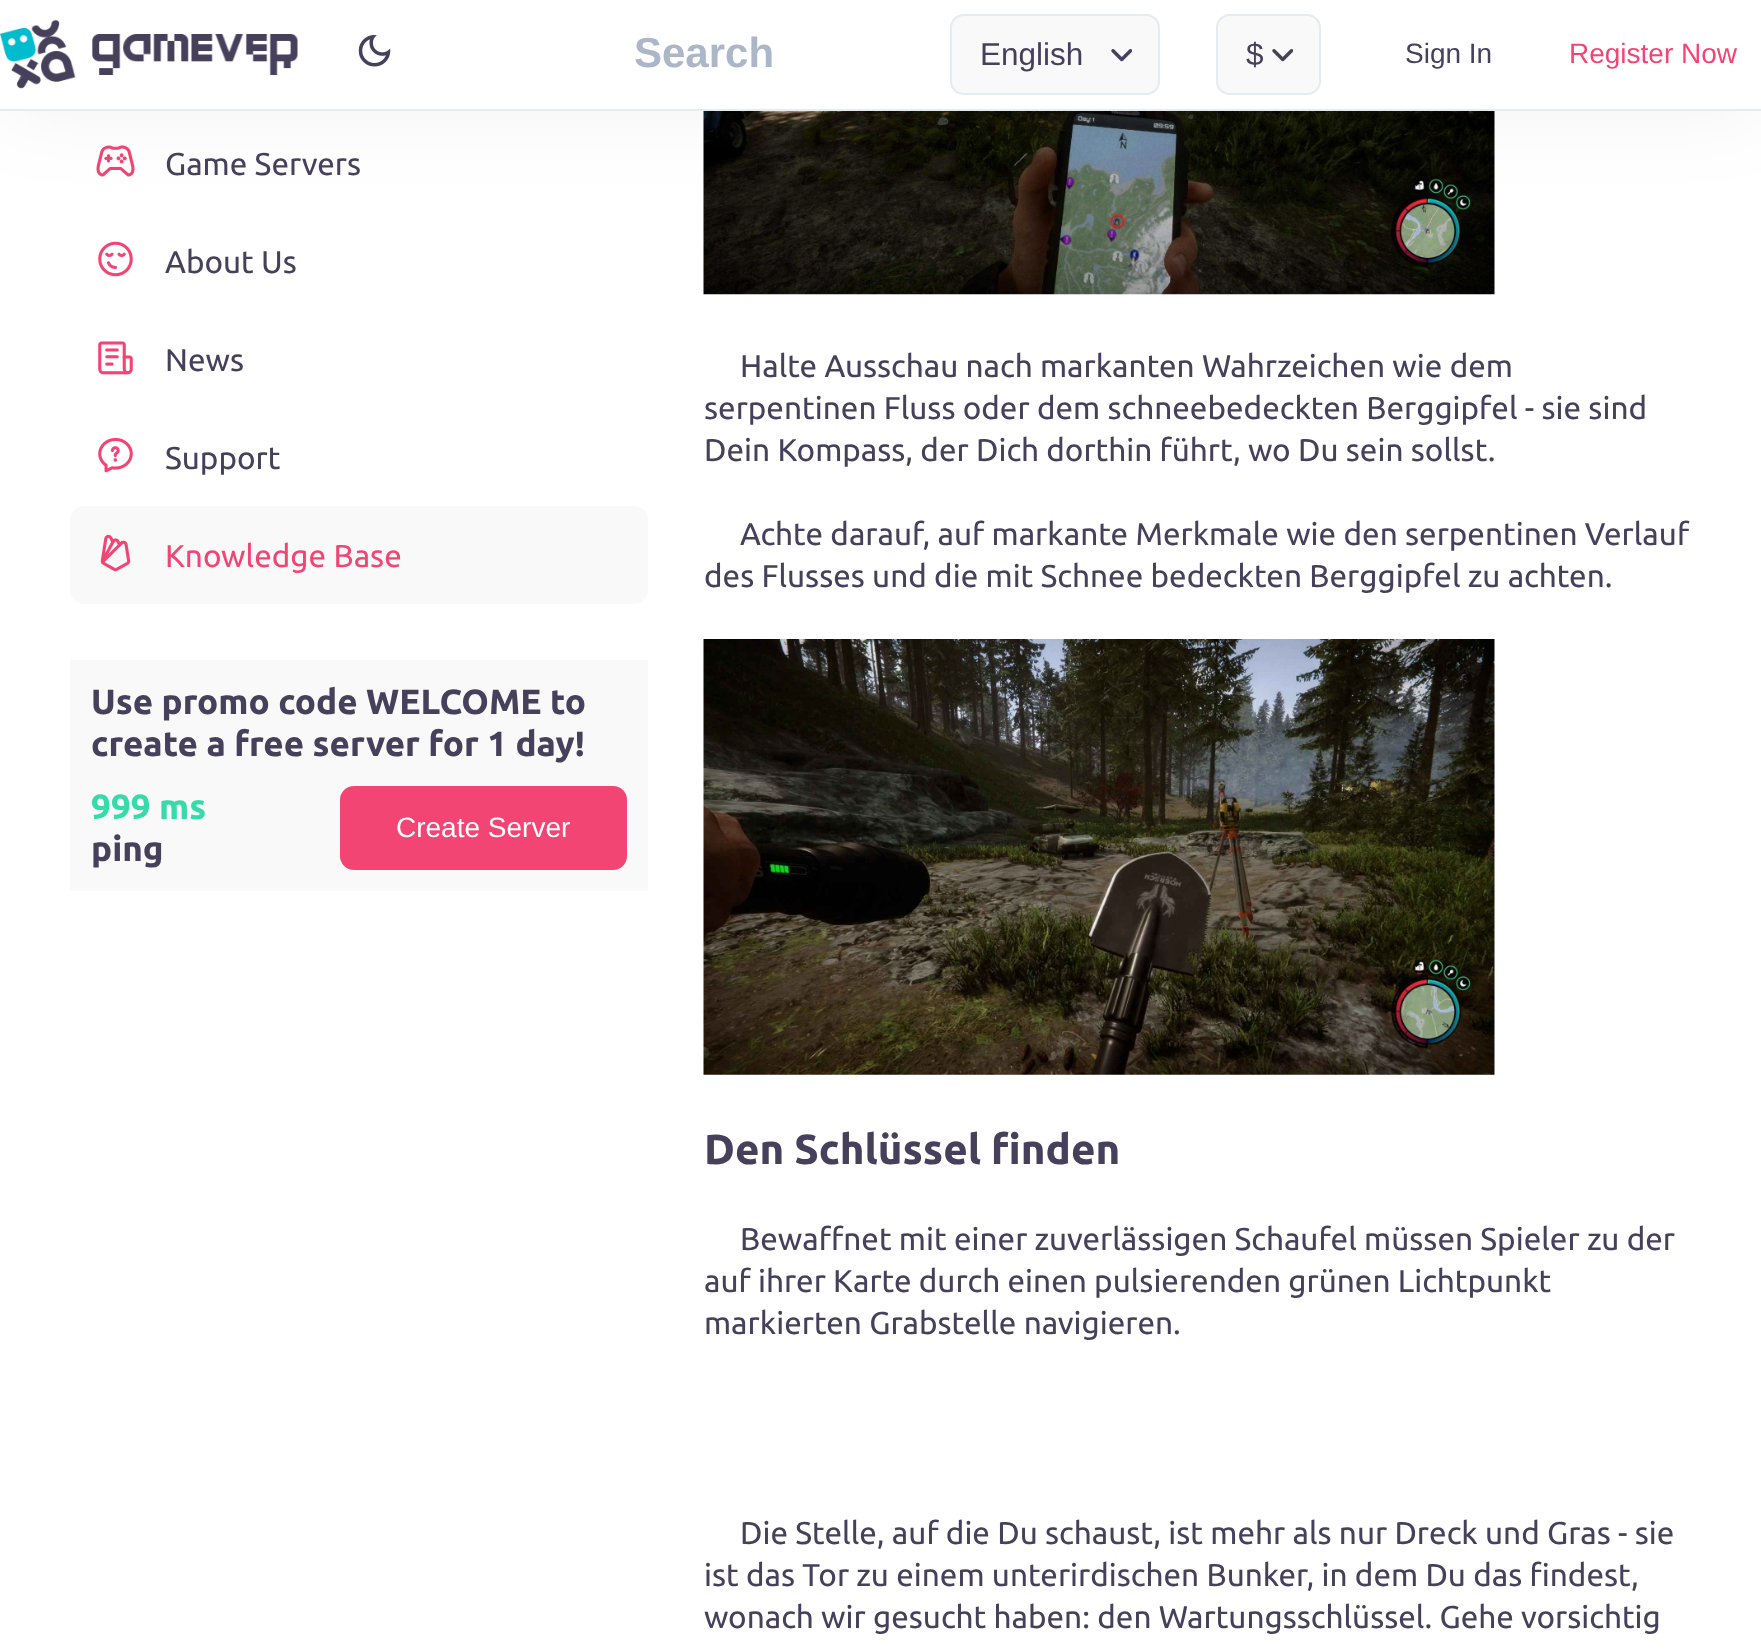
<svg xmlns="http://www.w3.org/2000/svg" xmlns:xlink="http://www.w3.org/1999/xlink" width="1761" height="1650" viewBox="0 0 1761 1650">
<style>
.cls-1{font:bold 42px Liberation Sans;fill:#abb7c7}
.cls-2{font:31.5px Liberation Sans;fill:#46405b}
.cls-3{font:28px Liberation Sans;fill:#46405b}
.cls-4{font:28px Liberation Sans;fill:#f34573}
.cls-5{font:31.5px Ubuntu;fill:#46405b}
.cls-6{font:31.5px Ubuntu;fill:#f34573}
.cls-7{font:bold 35px Ubuntu;fill:#46405b}
.cls-8{font:bold 35px Ubuntu;fill:#35dba8}
.cls-9{font:28px Liberation Sans;fill:#ffffff}
.cls-10{font:bold 42px Ubuntu;fill:#46405b}
</style>
<rect width="100%" height="100%" fill="#ffffff"/>
<image xlink:href="image3.png" x="96" y="145" width="39" height="32"/>
<image xlink:href="image4.png" x="98" y="241" width="35" height="36"/>
<image xlink:href="image8.png" x="703" y="111" width="792" height="184"/>
<rect fill="#000000" fill-opacity="0.05" filter="blur(44px)" x="0" y="0" width="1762" height="110"/>
<rect fill="#ffffff" x="0" y="0" width="1761" height="109"/>
<rect fill="#e6ebf1" x="0" y="109" width="1761" height="2"/>
<image xlink:href="image0.png" x="0" y="19" width="298" height="70"/>
<image xlink:href="image1.png" x="358" y="35" width="33" height="32"/>
<rect fill="#f9f9f9" x="950" y="14" width="210" height="81" rx="14"/>
<image xlink:href="image2.png" x="1111" y="49" width="21" height="13"/>
<rect fill="none" stroke="#e6ebf1" stroke-width="2" x="951" y="15" width="208" height="79" rx="13"/>
<rect fill="#f9f9f9" x="1216" y="14" width="105" height="81" rx="14"/>
<image xlink:href="image2.png" x="1272" y="49" width="21" height="13"/>
<rect fill="none" stroke="#e6ebf1" stroke-width="2" x="1217" y="15" width="103" height="79" rx="13"/>
<image xlink:href="image5.png" x="98" y="341" width="35" height="34"/>
<image xlink:href="image6.png" x="98" y="437" width="35" height="36"/>
<rect fill="#f9f9f9" x="70" y="506" width="578" height="98" rx="14"/>
<image xlink:href="image7.png" x="100" y="534" width="31" height="38"/>
<rect fill="#f9f9f9" x="70" y="660" width="578" height="231"/>
<rect fill="#f34573" x="340" y="786" width="287" height="84" rx="14"/>
<image xlink:href="image9.png" x="703" y="639" width="792" height="436"/>
<text class="cls-1" x="634" y="67">Search</text>
<text class="cls-2" x="980" y="65">English</text>
<text class="cls-2" x="1246" y="65">$</text>
<text class="cls-3" x="1405" y="63">Sign In</text>
<text class="cls-4" x="1569" y="63">Register Now</text>
<text class="cls-5" x="165" y="175">Game Servers</text>
<text class="cls-5" x="165" y="273">About Us</text>
<text class="cls-5" x="165" y="371">News</text>
<text class="cls-5" x="165" y="469">Support</text>
<text class="cls-6" x="165" y="567">Knowledge Base</text>
<text class="cls-7"><tspan x="91" y="714">Use promo code WELCOME to</tspan><tspan x="91" y="756">create a free server for 1 day!</tspan></text>
<text class="cls-8" x="91" y="819">999 ms</text>
<text class="cls-7" x="91" y="861">ping</text>
<text class="cls-9" x="396" y="837">Create Server</text>
<text class="cls-5" x="740" y="377">Halte Ausschau nach markanten Wahrzeichen wie dem</text>
<text class="cls-5"><tspan x="704" y="419">serpentinen Fluss oder dem schneebedeckten Berggipfel - sie sind</tspan><tspan x="704" y="461">Dein Kompass, der Dich dorthin führt, wo Du sein sollst.</tspan></text>
<text class="cls-5" x="740" y="545">Achte darauf, auf markante Merkmale wie den serpentinen Verlauf</text>
<text class="cls-5" x="704" y="587">des Flusses und die mit Schnee bedeckten Berggipfel zu achten.</text>
<text class="cls-10" x="704" y="1164">Den Schlüssel finden</text>
<text class="cls-5" x="740" y="1250">Bewaffnet mit einer zuverlässigen Schaufel müssen Spieler zu der</text>
<text class="cls-5"><tspan x="704" y="1292">auf ihrer Karte durch einen pulsierenden grünen Lichtpunkt</tspan><tspan x="704" y="1334">markierten Grabstelle navigieren.</tspan></text>
<text class="cls-5" x="740" y="1544">Die Stelle, auf die Du schaust, ist mehr als nur Dreck und Gras - sie</text>
<text class="cls-5"><tspan x="704" y="1586">ist das Tor zu einem unterirdischen Bunker, in dem Du das findest,</tspan><tspan x="704" y="1628">wonach wir gesucht haben: den Wartungsschlüssel. Gehe vorsichtig</tspan></text>
</svg>
